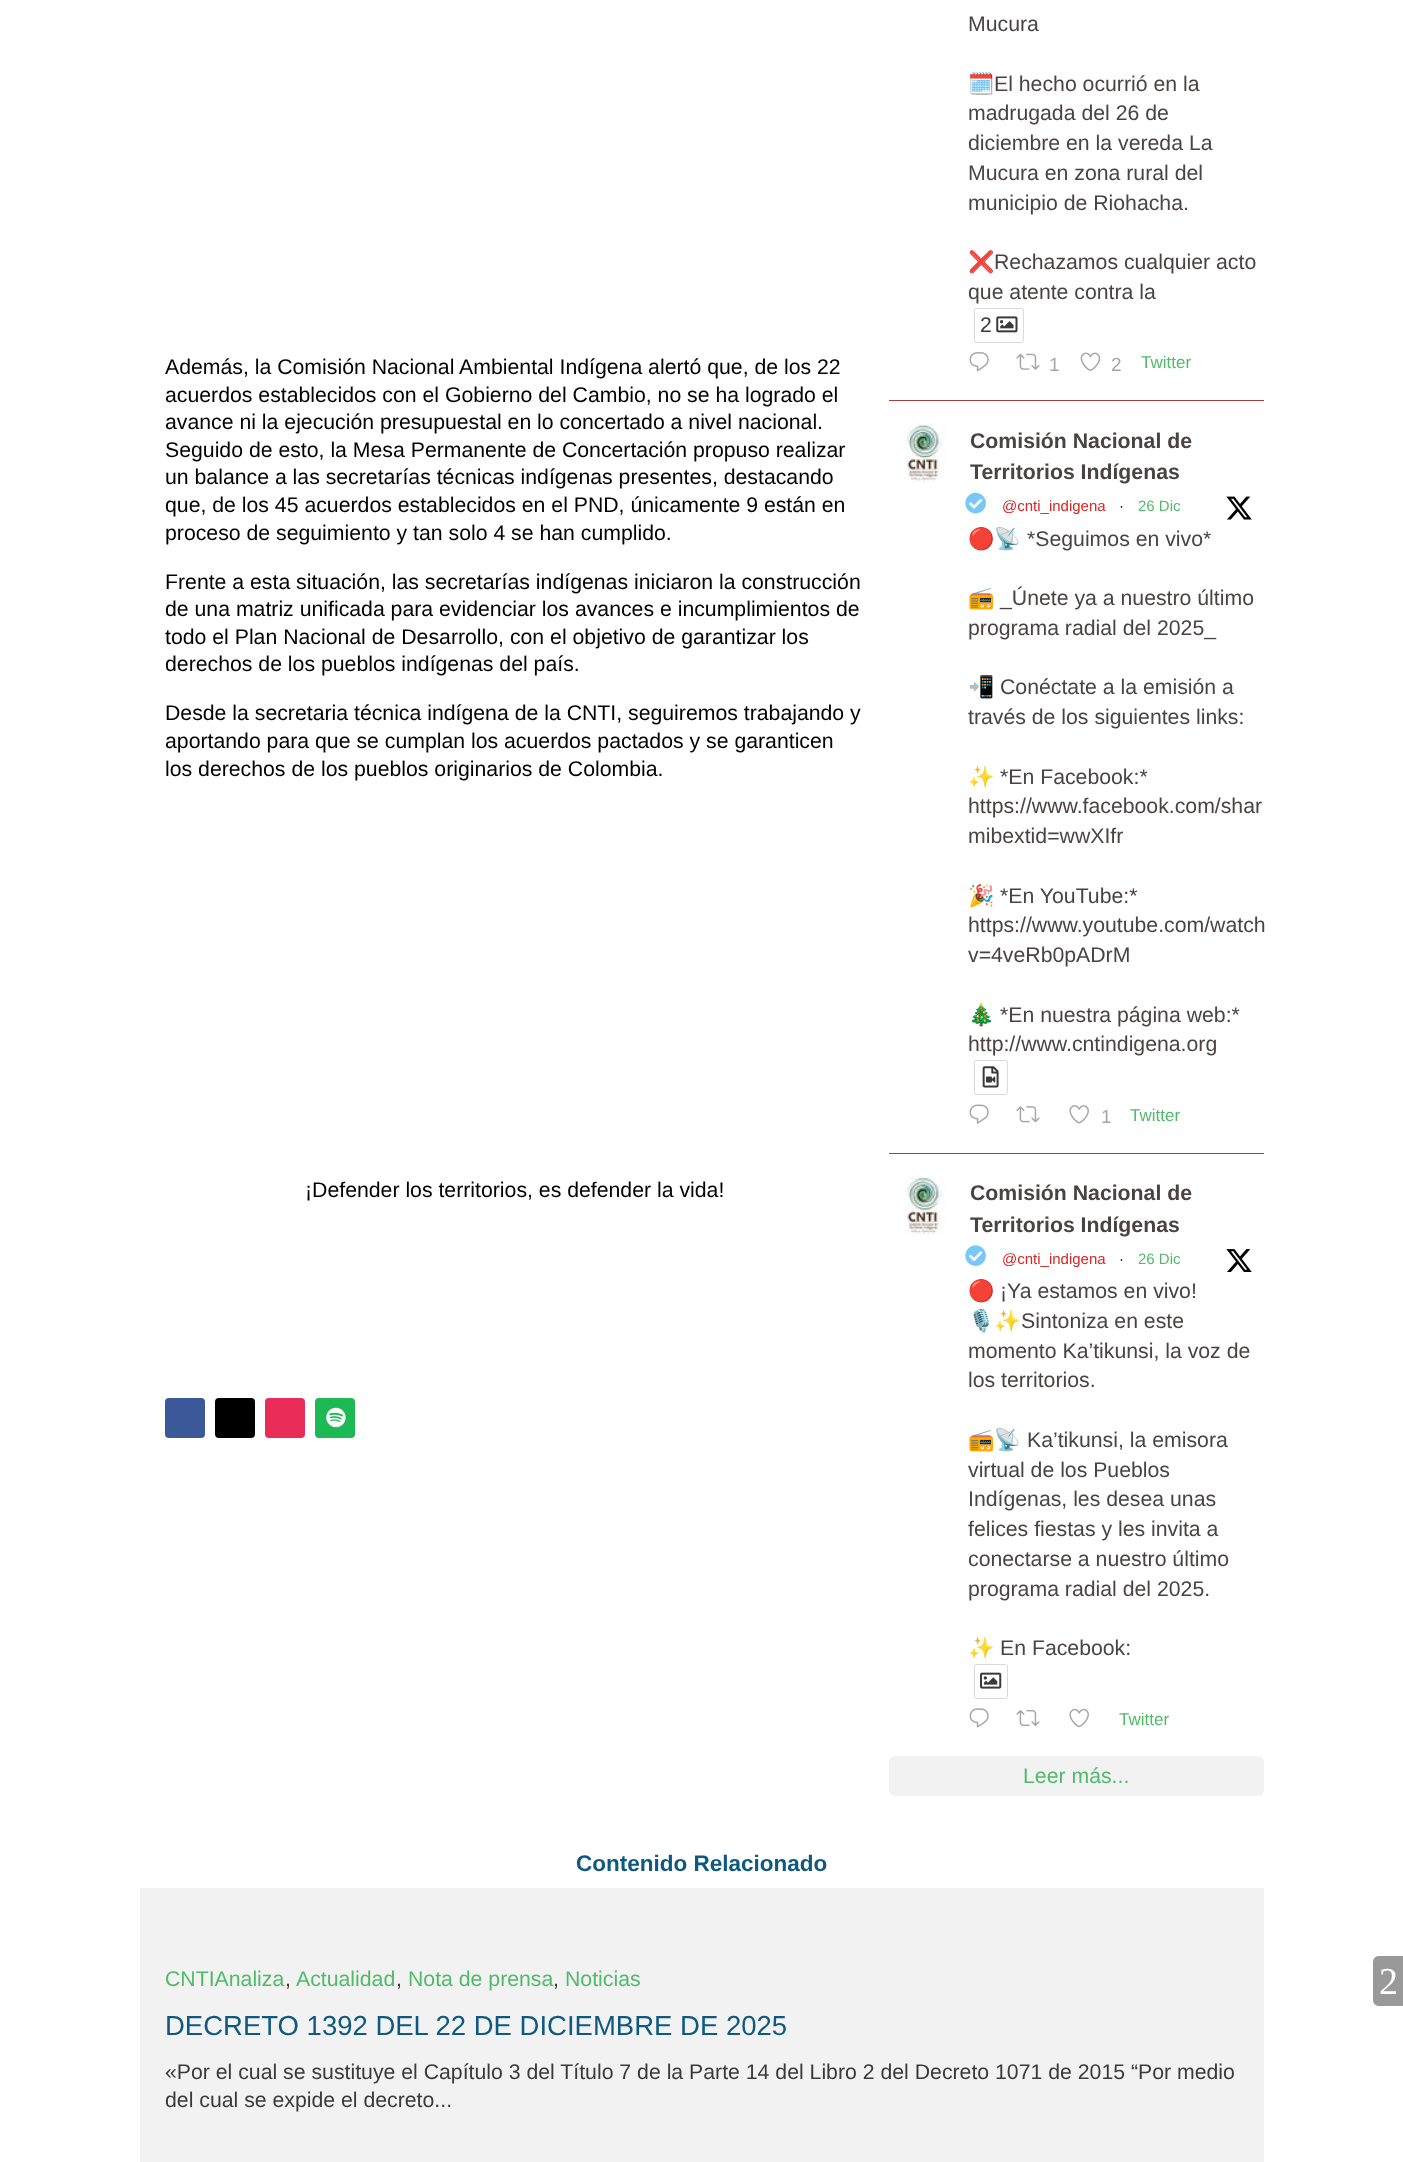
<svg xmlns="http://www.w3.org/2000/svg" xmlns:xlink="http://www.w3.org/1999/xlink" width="1403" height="2162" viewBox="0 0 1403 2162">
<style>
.cls-1{font:21.25px Liberation Sans;fill:#000000}
.cls-2{font:21.25px Liberation Sans;fill:#4b4343}
.cls-3{font:21.25px Noto Color Emoji;fill:#4b4343}
.cls-4{font:21.25px Liberation Sans;fill:#3a3a3a}
.cls-5{font:19px Liberation Sans;fill:#a6a6a6}
.cls-6{font:17px Liberation Sans;fill:#51ba6a}
.cls-7{font:bold 21.25px Liberation Sans;fill:#4b4343}
.cls-8{font:15px Liberation Sans;fill:#d82626}
.cls-9{font:15px Liberation Sans;fill:#000000}
.cls-10{font:15px Liberation Sans;fill:#51ba6a}
.cls-11{font:21.25px Liberation Sans;fill:#51ba6a}
.cls-12{font:bold 22.5px Liberation Sans;fill:#0d5980}
.cls-13{font:27.5px Liberation Sans;fill:#0d5980}
.cls-14{font:38px Liberation Serif;fill:#ffffff}
</style>
<rect width="100%" height="100%" fill="#ffffff"/>
<rect fill="#3b5998" x="165" y="1398" width="40" height="40" rx="4"/>
<rect fill="#000000" x="215" y="1398" width="40" height="40" rx="4"/>
<rect fill="#ea2c59" x="265" y="1398" width="40" height="40" rx="4"/>
<rect fill="#1db954" x="315" y="1398" width="40" height="40" rx="4"/>
<image xlink:href="image0.png" x="326" y="1407" width="20" height="21"/>
<rect fill="#a73f3f" x="889" y="400" width="375" height="1"/>
<rect fill="none" stroke="#d9d9d9" x="974.5" y="308.5" width="49" height="34" rx="2"/>
<image xlink:href="image1.png" x="996" y="316" width="22" height="17"/>
<image xlink:href="image2.png" x="969" y="352" width="20" height="20"/>
<image xlink:href="image3.png" x="1016" y="353" width="24" height="17"/>
<image xlink:href="image4.png" x="1080" y="352" width="21" height="19"/>
<rect fill="#a73f3f" x="889" y="1153" width="375" height="1"/>
<image xlink:href="image5.png" x="904" y="423" width="41" height="60"/>
<image xlink:href="image6.png" x="965" y="492" width="21" height="22"/>
<image xlink:href="image7.png" x="1226" y="496" width="26" height="24"/>
<rect fill="none" stroke="#d9d9d9" x="974.5" y="1060.5" width="33" height="34" rx="2"/>
<image xlink:href="image8.png" x="982" y="1066" width="17" height="22"/>
<image xlink:href="image9.png" x="969" y="1104" width="20" height="20"/>
<image xlink:href="image10.png" x="1016" y="1106" width="24" height="17"/>
<image xlink:href="image11.png" x="1069" y="1105" width="20" height="19"/>
<image xlink:href="image12.png" x="904" y="1176" width="41" height="60"/>
<image xlink:href="image13.png" x="965" y="1245" width="21" height="21"/>
<image xlink:href="image14.png" x="1226" y="1249" width="26" height="23"/>
<rect fill="none" stroke="#d9d9d9" x="974.5" y="1664.5" width="33" height="34" rx="2"/>
<image xlink:href="image15.png" x="980" y="1672" width="22" height="17"/>
<image xlink:href="image16.png" x="969" y="1708" width="20" height="20"/>
<image xlink:href="image17.png" x="1016" y="1710" width="24" height="17"/>
<image xlink:href="image18.png" x="1069" y="1708" width="20" height="20"/>
<rect fill="#f2f2f2" x="889" y="1756" width="375" height="40" rx="6"/>
<rect fill="#f2f2f2" x="140" y="1888" width="1124" height="274"/>
<path fill="#999999" d="M1379 1956H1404V2006H1379C1375.5 2006 1373 2003.5 1373 2000V1962C1373 1958.5 1375.5 1956 1379 1956Z"/>
<text class="cls-1"><tspan x="165" y="374">Además, la Comisión Nacional Ambiental Indígena alertó que, de los 22</tspan><tspan x="165" y="402">acuerdos establecidos con el Gobierno del Cambio, no se ha logrado el</tspan><tspan x="165" y="429">avance ni la ejecución presupuestal en lo concertado a nivel nacional.</tspan><tspan x="165" y="457">Seguido de esto, la Mesa Permanente de Concertación propuso realizar</tspan><tspan x="165" y="484">un balance a las secretarías técnicas indígenas presentes, destacando</tspan><tspan x="165" y="512">que, de los 45 acuerdos establecidos en el PND, únicamente 9 están en</tspan><tspan x="165" y="540">proceso de seguimiento y tan solo 4 se han cumplido.</tspan></text>
<text class="cls-1"><tspan x="165" y="589">Frente a esta situación, las secretarías indígenas iniciaron la construcción</tspan><tspan x="165" y="616">de una matriz unificada para evidenciar los avances e incumplimientos de</tspan><tspan x="165" y="644">todo el Plan Nacional de Desarrollo, con el objetivo de garantizar los</tspan><tspan x="165" y="671">derechos de los pueblos indígenas del país.</tspan></text>
<text class="cls-1"><tspan x="165" y="720">Desde la secretaria técnica indígena de la CNTI, seguiremos trabajando y</tspan><tspan x="165" y="748">aportando para que se cumplan los acuerdos pactados y se garanticen</tspan><tspan x="165" y="776">los derechos de los pueblos originarios de Colombia.</tspan></text>
<text class="cls-1" x="305" y="1197">¡Defender los territorios, es defender la vida!</text>
<text class="cls-2" x="968" y="31">Mucura</text>
<text class="cls-3" x="968" y="91">🗓️</text>
<text class="cls-2" x="994" y="91">El hecho ocurrió en la</text>
<text class="cls-2"><tspan x="968" y="120">madrugada del 26 de</tspan><tspan x="968" y="150">diciembre en la vereda La</tspan><tspan x="968" y="180">Mucura en zona rural del</tspan><tspan x="968" y="210">municipio de Riohacha.</tspan></text>
<text class="cls-3" x="968" y="269">❌</text>
<text class="cls-2" x="994" y="269">Rechazamos cualquier acto</text>
<text class="cls-2" x="968" y="299">que atente contra la</text>
<text class="cls-4" x="980" y="332">2</text>
<text class="cls-5" x="1049" y="371">1</text>
<text class="cls-5" x="1111" y="371">2</text>
<text class="cls-6" x="1141" y="368">Twitter</text>
<text class="cls-7"><tspan x="970" y="448">Comisión Nacional de</tspan><tspan x="970" y="479">Territorios Indígenas</tspan></text>
<text class="cls-8" x="1002" y="511">@cnti_indigena</text>
<text class="cls-9" x="1119" y="511">·</text>
<text class="cls-10" x="1138" y="511">26 Dic</text>
<text class="cls-3" x="968" y="546">🔴📡</text>
<text class="cls-2" x="1027" y="546">*Seguimos en vivo*</text>
<text class="cls-3" x="968" y="605">📻</text>
<text class="cls-2" x="1000" y="605">_Únete ya a nuestro último</text>
<text class="cls-2" x="968" y="635">programa radial del 2025_</text>
<text class="cls-3" x="968" y="694">📲</text>
<text class="cls-2" x="1000" y="694">Conéctate a la emisión a</text>
<text class="cls-2" x="968" y="724">través de los siguientes links:</text>
<text class="cls-3" x="968" y="784">✨</text>
<text class="cls-2" x="1000" y="784">*En Facebook:*</text>
<text class="cls-2"><tspan x="968" y="813">https://www.facebook.com/shar</tspan><tspan x="968" y="843">mibextid=wwXIfr</tspan></text>
<text class="cls-3" x="968" y="903">🎉</text>
<text class="cls-2" x="1000" y="903">*En YouTube:*</text>
<text class="cls-2"><tspan x="968" y="932">https://www.youtube.com/watch</tspan><tspan x="968" y="962">v=4veRb0pADrM</tspan></text>
<text class="cls-3" x="968" y="1022">🎄</text>
<text class="cls-2" x="1000" y="1022">*En nuestra página web:*</text>
<text class="cls-2" x="968" y="1051">http://www.cntindigena.org</text>
<text class="cls-5" x="1101" y="1123">1</text>
<text class="cls-6" x="1130" y="1121">Twitter</text>
<text class="cls-7"><tspan x="970" y="1200">Comisión Nacional de</tspan><tspan x="970" y="1232">Territorios Indígenas</tspan></text>
<text class="cls-8" x="1002" y="1264">@cnti_indigena</text>
<text class="cls-9" x="1119" y="1264">·</text>
<text class="cls-10" x="1138" y="1264">26 Dic</text>
<text class="cls-3" x="968" y="1298">🔴</text>
<text class="cls-2" x="1000" y="1298">¡Ya estamos en vivo!</text>
<text class="cls-3" x="968" y="1328">🎙️✨</text>
<text class="cls-2" x="1021" y="1328">Sintoniza en este</text>
<text class="cls-2"><tspan x="968" y="1358">momento Ka’tikunsi, la voz de</tspan><tspan x="968" y="1387">los territorios.</tspan></text>
<text class="cls-3" x="968" y="1447">📻📡</text>
<text class="cls-2" x="1027" y="1447">Ka’tikunsi, la emisora</text>
<text class="cls-2"><tspan x="968" y="1477">virtual de los Pueblos</tspan><tspan x="968" y="1506">Indígenas, les desea unas</tspan><tspan x="968" y="1536">felices fiestas y les invita a</tspan><tspan x="968" y="1566">conectarse a nuestro último</tspan><tspan x="968" y="1596">programa radial del 2025.</tspan></text>
<text class="cls-3" x="968" y="1655">✨</text>
<text class="cls-2" x="1000" y="1655">En Facebook:</text>
<text class="cls-6" x="1119" y="1725">Twitter</text>
<text class="cls-11" x="1023" y="1783">Leer más...</text>
<text class="cls-12" x="576" y="1871">Contenido Relacionado</text>
<text class="cls-11" x="165" y="1986">CNTIAnaliza</text>
<text class="cls-4" x="285" y="1986">,</text>
<text class="cls-11" x="296" y="1986">Actualidad</text>
<text class="cls-4" x="396" y="1986">,</text>
<text class="cls-11" x="408" y="1986">Nota de prensa</text>
<text class="cls-4" x="553" y="1986">,</text>
<text class="cls-11" x="565" y="1986">Noticias</text>
<text class="cls-13" x="165" y="2035">DECRETO 1392 DEL 22 DE DICIEMBRE DE 2025</text>
<text class="cls-4"><tspan x="165" y="2079">«Por el cual se sustituye el Capítulo 3 del Título 7 de la Parte 14 del Libro 2 del Decreto 1071 de 2015 “Por medio</tspan><tspan x="165" y="2107">del cual se expide el decreto...</tspan></text>
<text class="cls-14" x="1379" y="1994">2</text>
</svg>
